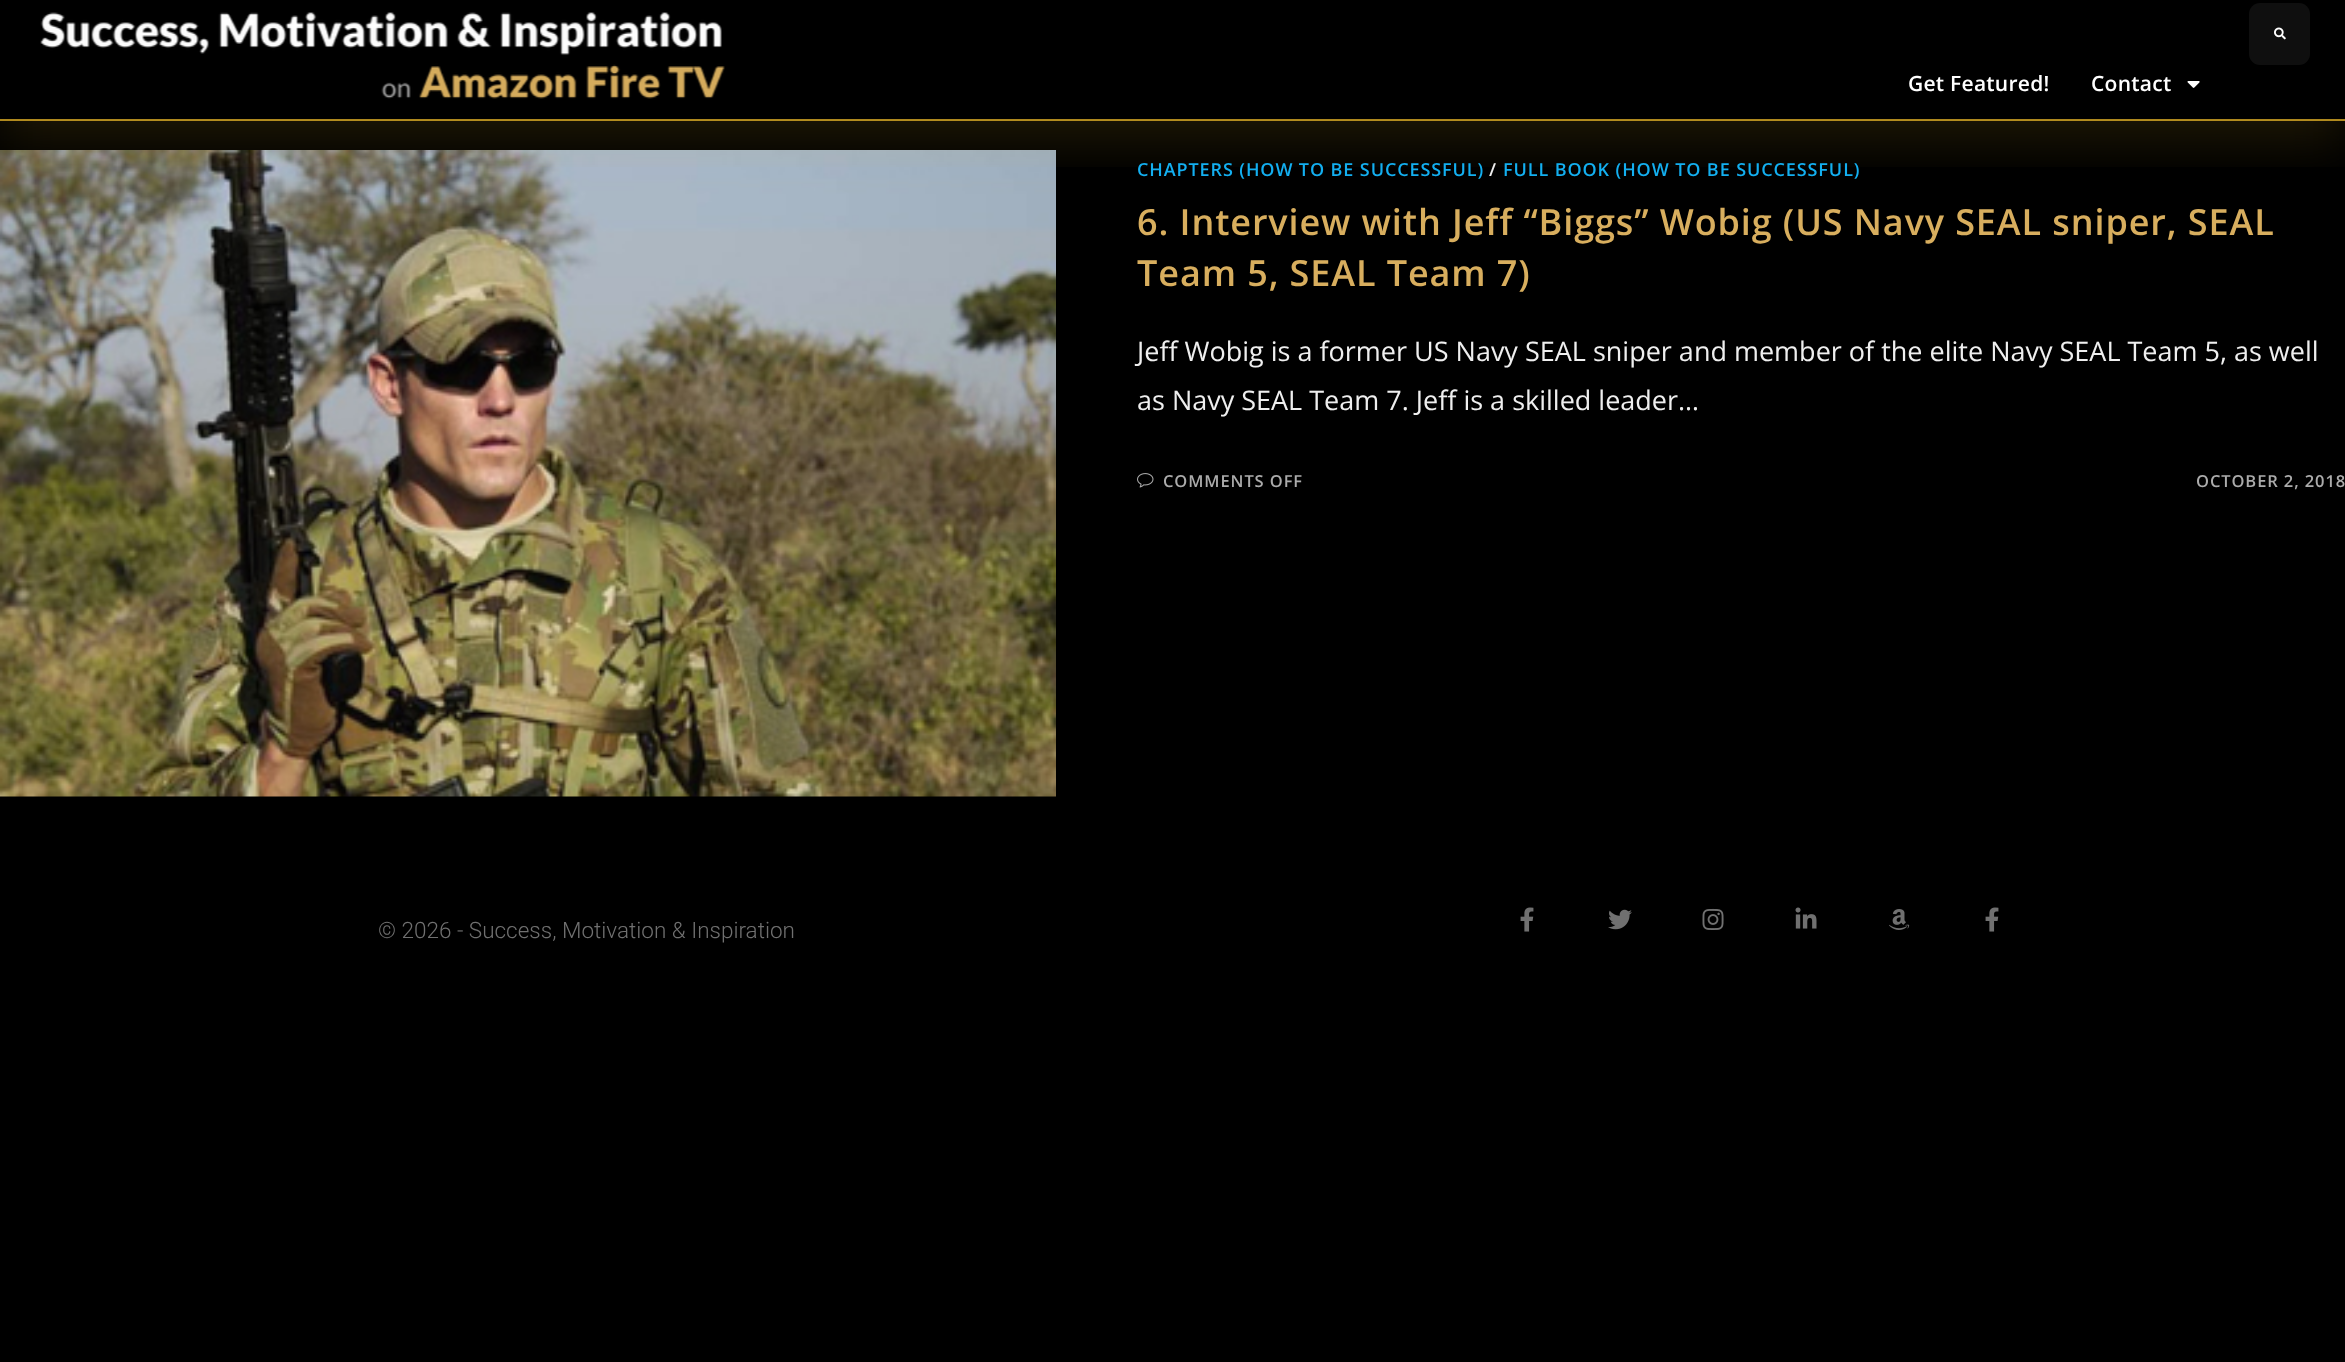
<svg xmlns="http://www.w3.org/2000/svg" xmlns:xlink="http://www.w3.org/1999/xlink" width="2345" height="1362" viewBox="0 0 2345 1362">
<style>
.cls-1{font:600 21px Open Sans;letter-spacing:0.25px;fill:#ffffff}
.cls-2{font:600 18px Open Sans;letter-spacing:0.9px;fill:#13aff0}
.cls-3{font:600 18px Open Sans;letter-spacing:0.9px;fill:#efefef}
.cls-4{font:600 36px Open Sans;letter-spacing:0.9px;fill:#d8ae5e}
.cls-5{font:27px Open Sans;fill:#efefef}
.cls-6{font:600 16.5px Open Sans;letter-spacing:0.9px;fill:#ababab}
.cls-7{font:300 22.5px Roboto;fill:#707070}
</style>
<defs>
<clipPath id="clip1"><rect x="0" y="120" width="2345" height="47"/></clipPath>
</defs>
<rect width="100%" height="100%" fill="#000000"/>
<image xlink:href="image3.png" x="0" y="150" width="1056" height="647"/>
<g clip-path="url(#clip1)">
<rect fill="#ffc72c" fill-opacity="0.12" filter="blur(27px)" x="0" y="21" width="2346" height="120"/>
</g>
<rect fill="#ffc72c" fill-opacity="0.68" x="0" y="119" width="2345" height="2"/>
<image xlink:href="image0.png" x="40" y="12" width="685" height="87"/>
<image xlink:href="image1.png" x="2187" y="81" width="13" height="7"/>
<rect fill="#0f0f0f" x="2249" y="3" width="61" height="62" rx="11"/>
<image xlink:href="image2.png" x="2274" y="27" width="12" height="13"/>
<image xlink:href="image4.png" x="1137" y="473" width="17" height="15"/>
<image xlink:href="image5.png" x="1520" y="907" width="14" height="25"/>
<image xlink:href="image6.png" x="1608" y="909" width="24" height="21"/>
<image xlink:href="image7.png" x="1702" y="908" width="22" height="22"/>
<image xlink:href="image8.png" x="1795" y="907" width="22" height="22"/>
<image xlink:href="image9.png" x="1889" y="909" width="21" height="21"/>
<image xlink:href="image5.png" x="1985" y="907" width="14" height="25"/>
<text class="cls-1" x="1908" y="91">Get Featured!</text>
<text class="cls-1" x="2091" y="91">Contact</text>
<text class="cls-2" x="1137" y="176">CHAPTERS (HOW TO BE SUCCESSFUL)</text>
<text class="cls-3" x="1489" y="176">/</text>
<text class="cls-2" x="1503" y="176">FULL BOOK (HOW TO BE SUCCESSFUL)</text>
<text class="cls-4"><tspan x="1137" y="235">6. Interview with Jeff “Biggs” Wobig (US Navy SEAL sniper, SEAL</tspan><tspan x="1137" y="286">Team 5, SEAL Team 7)</tspan></text>
<text class="cls-5"><tspan x="1137" y="361">Jeff Wobig is a former US Navy SEAL sniper and member of the elite Navy SEAL Team 5, as well</tspan><tspan x="1137" y="410">as Navy SEAL Team 7. Jeff is a skilled leader…</tspan></text>
<text class="cls-6" x="1163" y="487">COMMENTS OFF</text>
<text class="cls-6" x="2196" y="487">OCTOBER 2, 2018</text>
<text class="cls-7" x="378" y="938">© 2026 - Success, Motivation &amp; Inspiration</text>
</svg>
